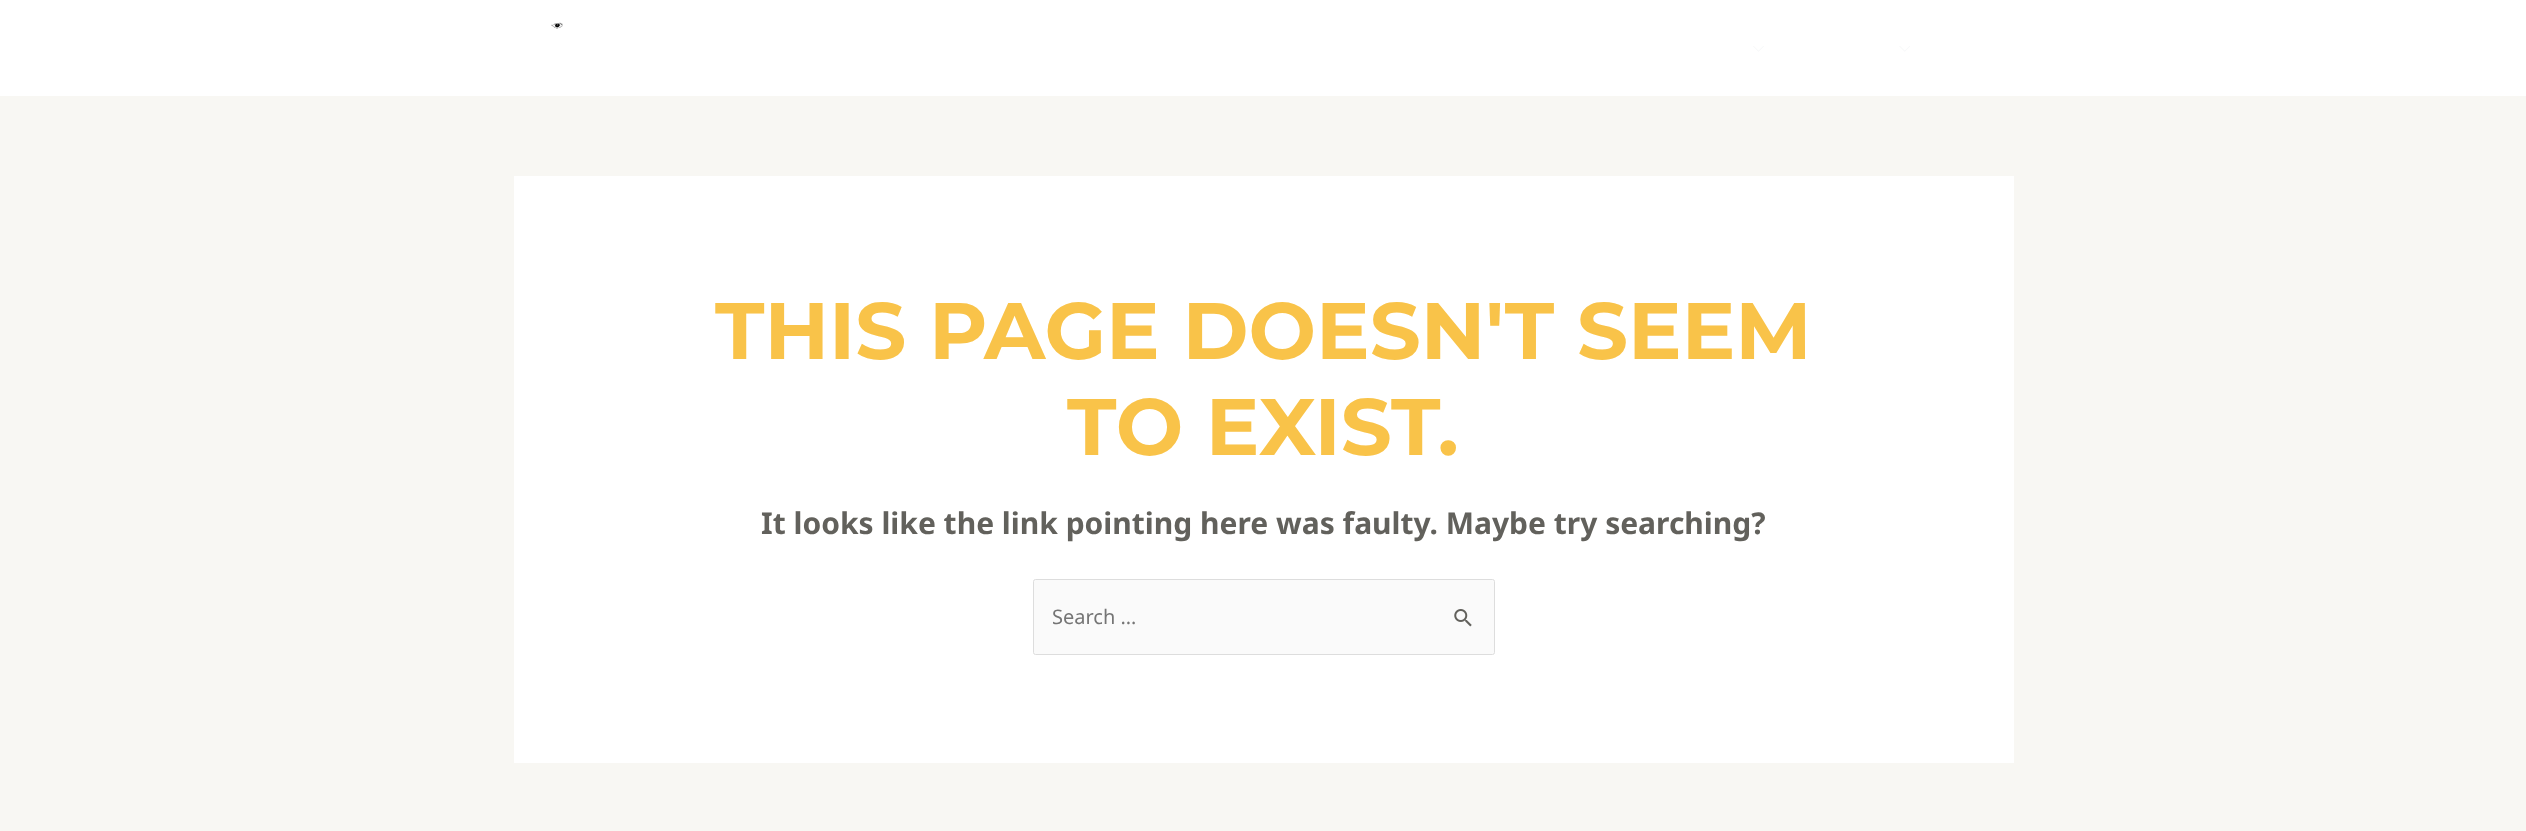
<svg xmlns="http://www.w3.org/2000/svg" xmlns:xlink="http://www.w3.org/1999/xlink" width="2526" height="831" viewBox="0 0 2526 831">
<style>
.cls-1{font:100 80px Montserrat;fill:#f9c349}
.cls-2{font:bold 30px Noto Sans;fill:#62615c}
.cls-3{font:20px Noto Sans;fill:#757575}
</style>
<rect width="100%" height="100%" fill="#f8f7f3"/>
<rect fill="#ffffff" x="0" y="0" width="2526" height="96"/>
<image xlink:href="image0.png" x="551" y="22" width="12" height="7"/>
<image xlink:href="image1.png" x="1753" y="46" width="11" height="6"/>
<image xlink:href="image2.png" x="1899" y="46" width="11" height="6"/>
<rect fill="#ffffff" x="514" y="176" width="1500" height="587"/>
<rect fill="#fafafa" stroke="#dddddd" x="1033.5" y="579.5" width="461" height="75" rx="2"/>
<image xlink:href="image3.png" x="1454" y="609" width="18" height="18"/>
<text class="cls-1" x="715" y="359">THIS PAGE DOESN'T SEEM</text>
<text class="cls-1" x="1067" y="455">TO EXIST.</text>
<text class="cls-2" x="761" y="534">It looks like the link pointing here was faulty. Maybe try searching?</text>
<text class="cls-3" x="1052" y="624">Search …</text>
</svg>
